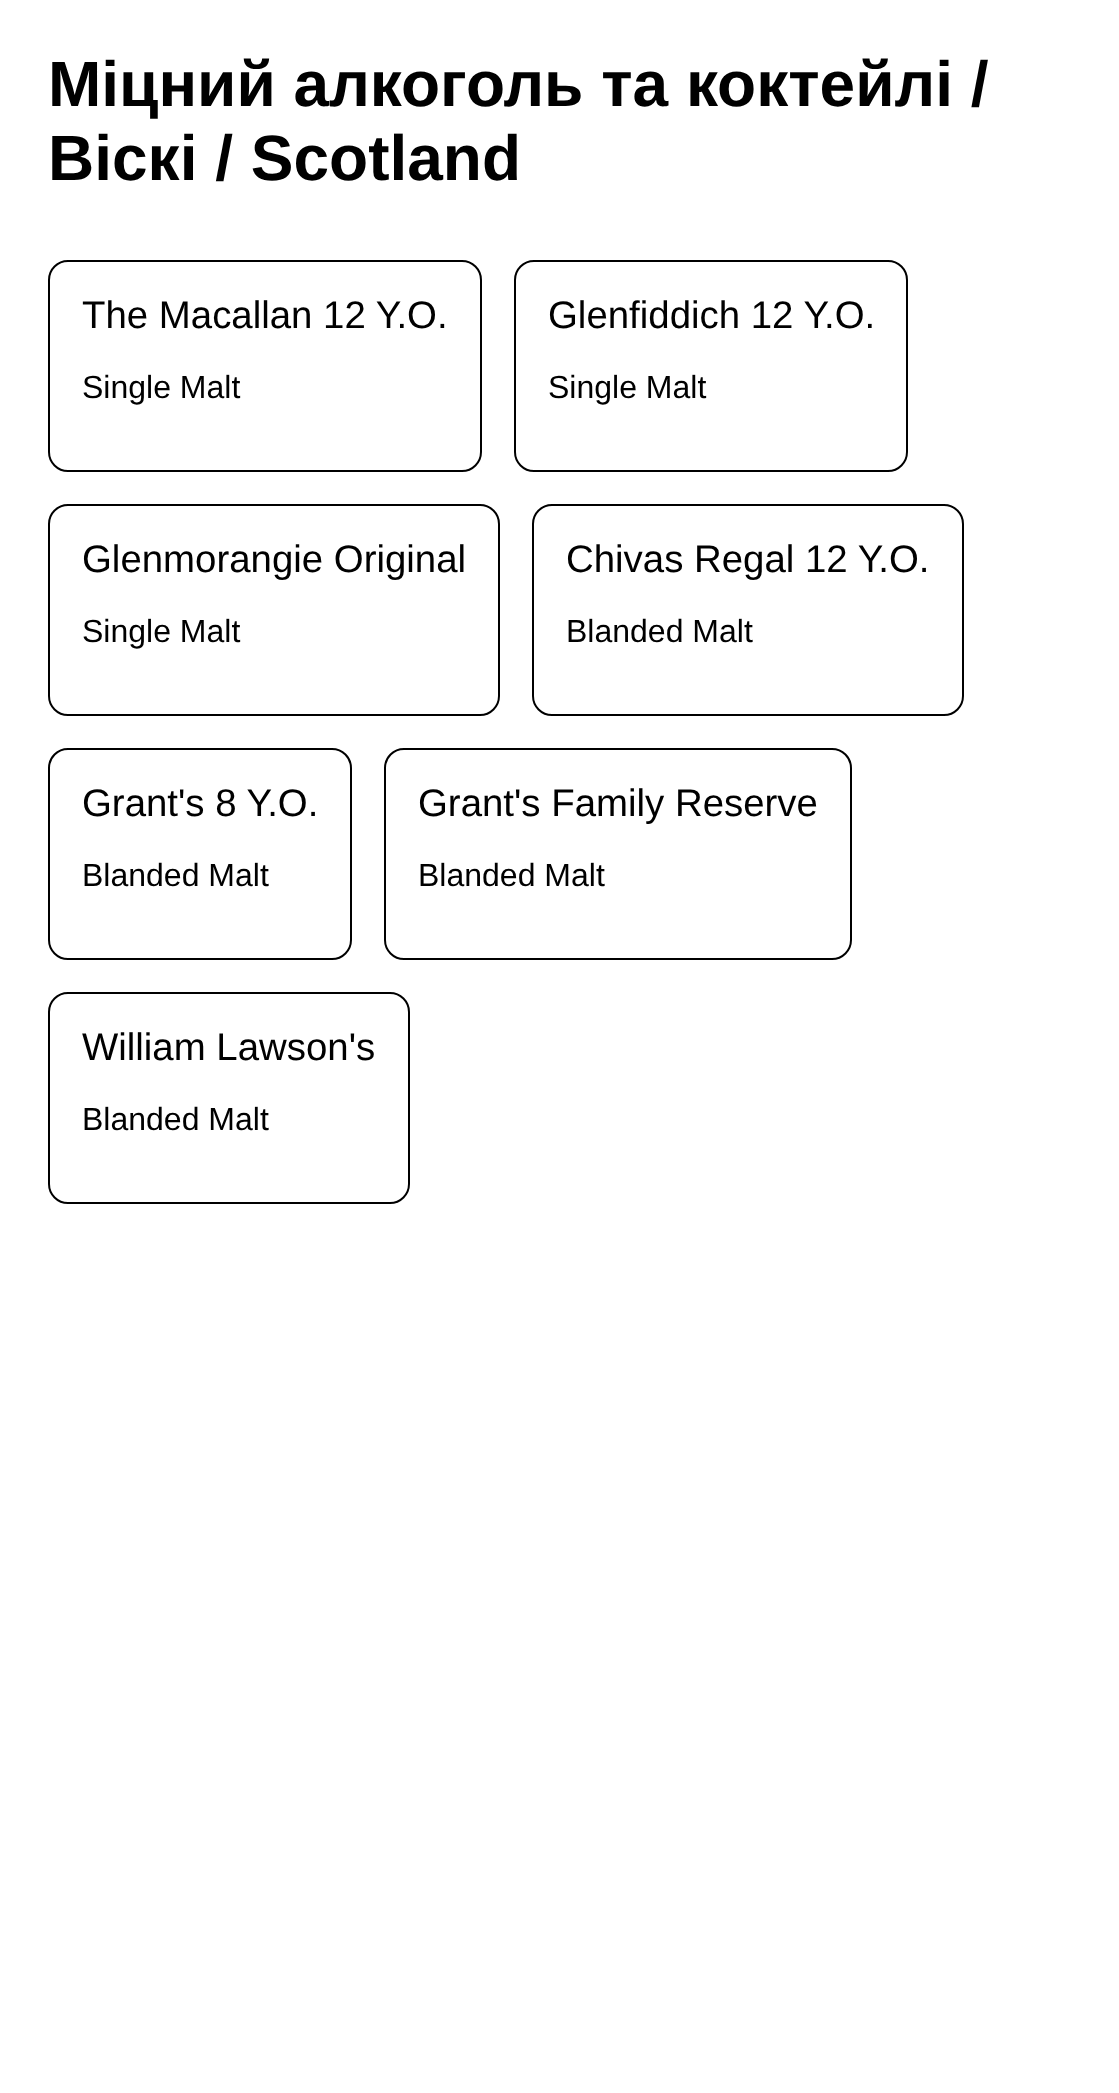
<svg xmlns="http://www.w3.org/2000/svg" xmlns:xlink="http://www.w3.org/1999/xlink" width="1119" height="2093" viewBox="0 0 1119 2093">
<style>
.cls-1{font:bold 64px Liberation Sans;fill:#000000}
.cls-2{font:38.4px Liberation Sans;fill:#000000}
.cls-3{font:32px Liberation Sans;fill:#000000}
</style>
<rect width="100%" height="100%" fill="#ffffff"/>
<rect fill="none" stroke="#000000" stroke-width="2" x="49" y="261" width="432" height="210" rx="19"/>
<rect fill="none" stroke="#000000" stroke-width="2" x="515" y="261" width="392" height="210" rx="19"/>
<rect fill="none" stroke="#000000" stroke-width="2" x="49" y="505" width="450" height="210" rx="19"/>
<rect fill="none" stroke="#000000" stroke-width="2" x="533" y="505" width="430" height="210" rx="19"/>
<rect fill="none" stroke="#000000" stroke-width="2" x="49" y="749" width="302" height="210" rx="19"/>
<rect fill="none" stroke="#000000" stroke-width="2" x="385" y="749" width="466" height="210" rx="19"/>
<rect fill="none" stroke="#000000" stroke-width="2" x="49" y="993" width="360" height="210" rx="19"/>
<text class="cls-1"><tspan x="48" y="106">Міцний алкоголь та коктейлі /</tspan><tspan x="48" y="180">Віскі / Scotland</tspan></text>
<text class="cls-2" x="82" y="328">The Macallan 12 Y.O.</text>
<text class="cls-3" x="82" y="398">Single Malt</text>
<text class="cls-2" x="548" y="328">Glenfiddich 12 Y.O.</text>
<text class="cls-3" x="548" y="398">Single Malt</text>
<text class="cls-2" x="82" y="572">Glenmorangie Original</text>
<text class="cls-3" x="82" y="642">Single Malt</text>
<text class="cls-2" x="566" y="572">Chivas Regal 12 Y.O.</text>
<text class="cls-3" x="566" y="642">Blanded Malt</text>
<text class="cls-2" x="82" y="816">Grant's 8 Y.O.</text>
<text class="cls-3" x="82" y="886">Blanded Malt</text>
<text class="cls-2" x="418" y="816">Grant's Family Reserve</text>
<text class="cls-3" x="418" y="886">Blanded Malt</text>
<text class="cls-2" x="82" y="1060">William Lawson's</text>
<text class="cls-3" x="82" y="1130">Blanded Malt</text>
</svg>
